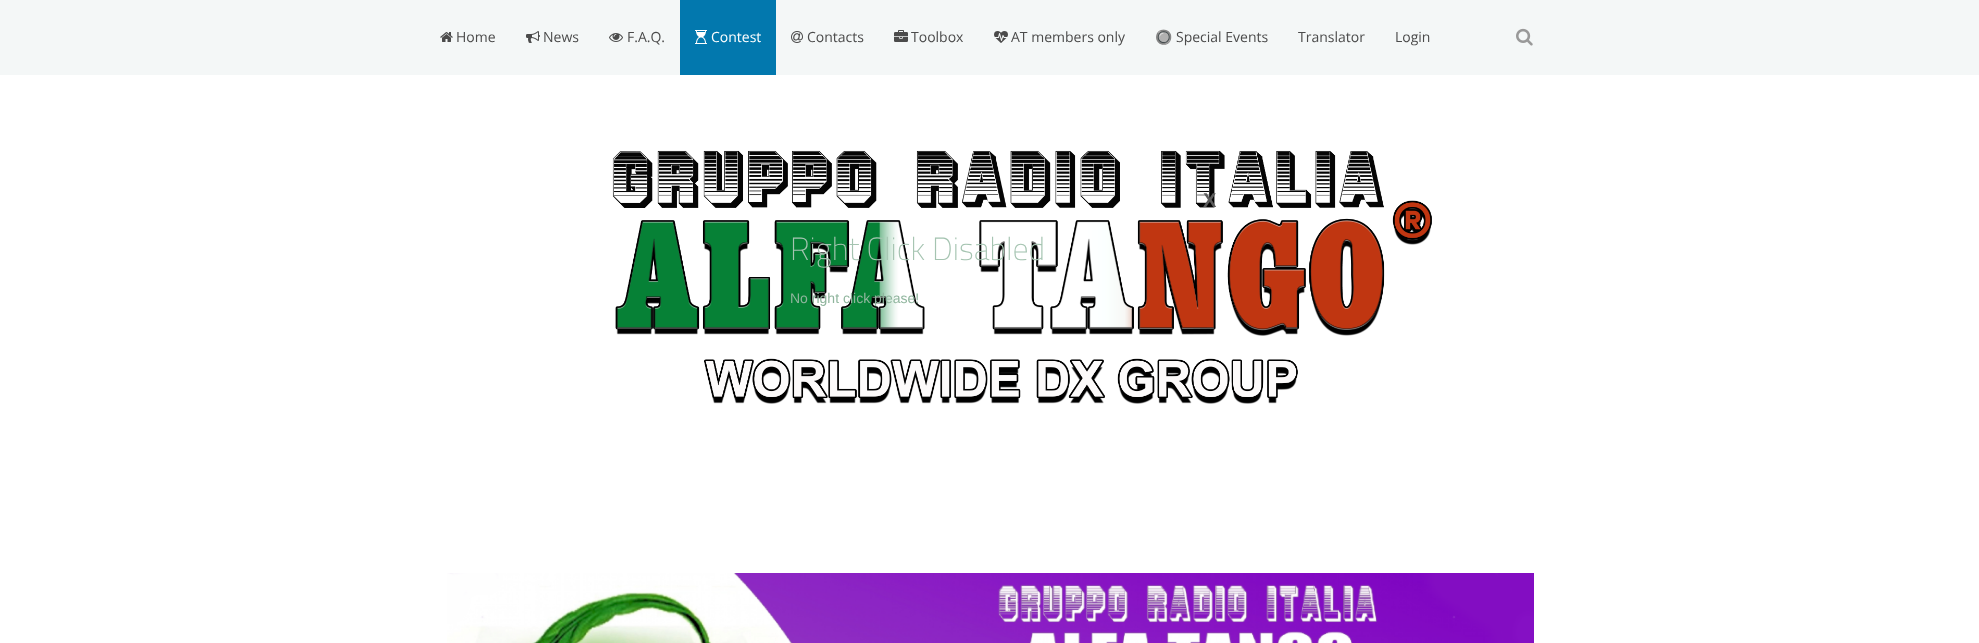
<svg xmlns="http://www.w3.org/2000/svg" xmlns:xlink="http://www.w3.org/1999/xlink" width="1979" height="643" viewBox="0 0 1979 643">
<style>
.cls-1{font:14px Open Sans;fill:#4b4b4b}
.cls-2{font:14px Open Sans;fill:#ffffff}
.cls-3{font:14px Noto Color Emoji;fill:#4b4b4b}
.cls-4{font:bold 20px Liberation Sans;fill:#5b5b5b}
.cls-5{font:200 32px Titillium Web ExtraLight;fill:#a5c4b1}
.cls-6{font:14px Liberation Sans;fill:#8fb59d}
</style>
<rect width="100%" height="100%" fill="#ffffff"/>
<rect fill="#f4f7f7" x="0" y="0" width="1979" height="75"/>
<image xlink:href="image0.png" x="440" y="32" width="13" height="10"/>
<image xlink:href="image1.png" x="526" y="31" width="14" height="12"/>
<image xlink:href="image2.png" x="609" y="33" width="14" height="9"/>
<rect fill="#0278ae" x="680" y="0" width="96" height="75"/>
<image xlink:href="image3.png" x="695" y="30" width="12" height="14"/>
<image xlink:href="image4.png" x="791" y="31" width="12" height="12"/>
<image xlink:href="image5.png" x="894" y="30" width="14" height="12"/>
<image xlink:href="image6.png" x="994" y="31" width="14" height="12"/>
<image xlink:href="image7.png" x="1516" y="28" width="17" height="18"/>
<image xlink:href="image8.png" x="612" y="150" width="820" height="254"/>
<image xlink:href="image9.png" x="447" y="573" width="1087" height="70"/>
<text class="cls-1" x="456" y="42">Home</text>
<text class="cls-1" x="543" y="42">News</text>
<text class="cls-1" x="627" y="42">F.A.Q.</text>
<text class="cls-2" x="711" y="42">Contest</text>
<text class="cls-1" x="807" y="42">Contacts</text>
<text class="cls-1" x="911" y="42">Toolbox</text>
<text class="cls-1" x="1011" y="42">AT members only</text>
<text class="cls-3" x="1155" y="42">🔘</text>
<text class="cls-1" x="1176" y="42">Special Events</text>
<text class="cls-1" x="1298" y="42">Translator</text>
<text class="cls-1" x="1395" y="42">Login</text>
<text class="cls-4" x="1203" y="207">X</text>
<text class="cls-5" x="790" y="260">Right Click Disabled</text>
<text class="cls-6" x="790" y="303">No right click please!</text>
</svg>
